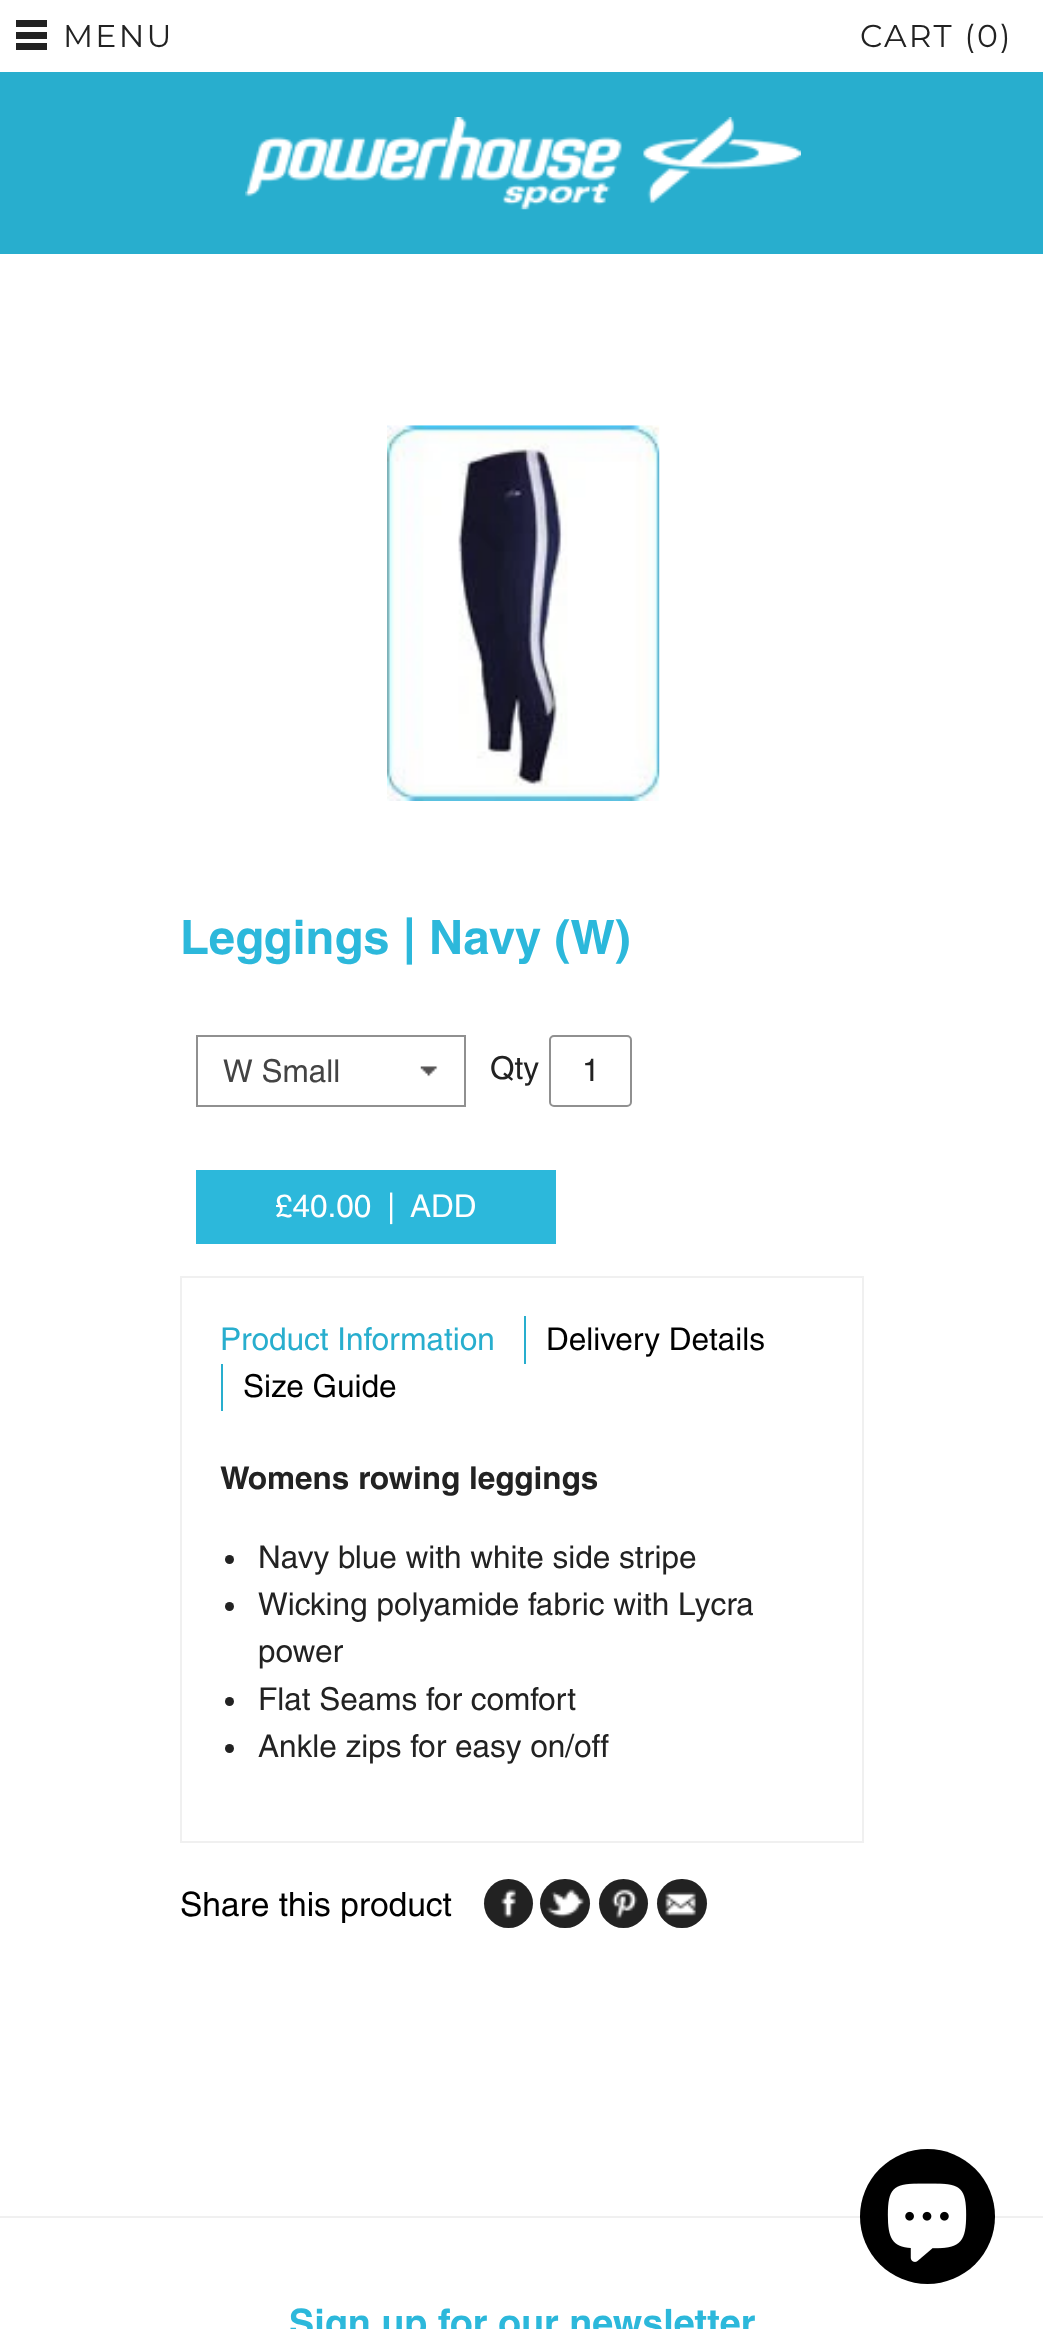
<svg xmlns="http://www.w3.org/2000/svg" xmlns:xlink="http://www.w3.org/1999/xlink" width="1043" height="2329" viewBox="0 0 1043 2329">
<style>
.cls-1{font:31.5px Montserrat;letter-spacing:2.25px;fill:#222222}
.cls-2{font:bold 47.25px Helvetica;fill:#2cb8db}
.cls-3{font:31.5px Helvetica;fill:#444444}
.cls-4{font:31.5px Helvetica;fill:#222222}
.cls-5{font:31.5px Helvetica;fill:#ffffff}
.cls-6{font:31.5px Helvetica;fill:#28aece}
.cls-7{font:31.5px Helvetica;fill:#000000}
.cls-8{font:bold 31.5px Helvetica;fill:#222222}
.cls-9{font:33.5px Helvetica;fill:#000000}
.cls-10{font:bold 37.75px Helvetica;fill:#2cb8db}
</style>
<rect width="100%" height="100%" fill="#ffffff"/>
<rect fill="#222222" x="16" y="20" width="31" height="7"/>
<rect fill="#222222" x="16" y="32" width="31" height="7"/>
<rect fill="#222222" x="16" y="43" width="31" height="7"/>
<rect fill="#28aece" x="0" y="72" width="1043" height="182"/>
<image xlink:href="image0.png" x="245" y="117" width="556" height="93"/>
<image xlink:href="image1.png" x="387" y="425" width="273" height="376"/>
<image xlink:href="image2.png" x="420" y="1066" width="18" height="11"/>
<rect fill="none" stroke="#909090" stroke-width="2" x="197" y="1036" width="268" height="70"/>
<rect fill="none" stroke="#909090" stroke-width="2" x="550" y="1036" width="81" height="70" rx="4"/>
<rect fill="#2cb8db" x="196" y="1170" width="360" height="74"/>
<rect fill="none" stroke="#f0f0f0" stroke-width="2" x="181" y="1277" width="682" height="565"/>
<rect fill="#28aece" x="524" y="1316" width="2" height="48"/>
<rect fill="#28aece" x="221" y="1364" width="2" height="47"/>
<circle fill="#222222" cx="229.5" cy="1559.5" r="4.5"/>
<circle fill="#222222" cx="229.5" cy="1606.5" r="4.5"/>
<circle fill="#222222" cx="229.5" cy="1701.5" r="4.5"/>
<circle fill="#222222" cx="229.5" cy="1748.5" r="4.5"/>
<circle fill="#222222" cx="508.5" cy="1903.5" r="24.5"/>
<image xlink:href="image3.png" x="501" y="1889" width="15" height="29"/>
<rect fill="#222222" x="540" y="1879" width="50" height="49" rx="24.5"/>
<image xlink:href="image4.png" x="546" y="1889" width="39" height="29"/>
<circle fill="#222222" cx="623.5" cy="1903.5" r="24.5"/>
<image xlink:href="image5.png" x="611" y="1889" width="27" height="31"/>
<rect fill="#222222" x="657" y="1879" width="50" height="49" rx="24.5"/>
<image xlink:href="image6.png" x="665" y="1892" width="31" height="24"/>
<rect fill="#f0f0f0" x="0" y="2216" width="1043" height="2"/>
<circle fill="#000000" cx="927.5" cy="2216.5" r="67.5"/>
<image xlink:href="image7.png" x="887" y="2183" width="80" height="79"/>
<text class="cls-1" x="63" y="47">MENU</text>
<text class="cls-1" x="860" y="47">CART (0)</text>
<text class="cls-2" x="180" y="954">Leggings | Navy (W)</text>
<text class="cls-3" x="223" y="1082">W Small</text>
<text class="cls-4" x="490" y="1079">Qty</text>
<text class="cls-4" x="582" y="1081">1</text>
<text class="cls-5" x="275" y="1217">£40.00</text>
<text class="cls-5" x="387" y="1217">|</text>
<text class="cls-5" x="410" y="1217">ADD</text>
<text class="cls-6" x="220" y="1350">Product Information</text>
<text class="cls-7" x="546" y="1350">Delivery Details</text>
<text class="cls-7" x="243" y="1397">Size Guide</text>
<text class="cls-8" x="220" y="1489">Womens rowing leggings</text>
<text class="cls-4"><tspan x="258" y="1568">Navy blue with white side stripe</tspan><tspan x="258" y="1615">Wicking polyamide fabric with Lycra</tspan><tspan x="258" y="1662">power</tspan><tspan x="258" y="1710">Flat Seams for comfort</tspan><tspan x="258" y="1757">Ankle zips for easy on/off</tspan></text>
<text class="cls-9" x="180" y="1916">Share this product</text>
<text class="cls-10" x="289" y="2336">Sign up for our newsletter</text>
</svg>
